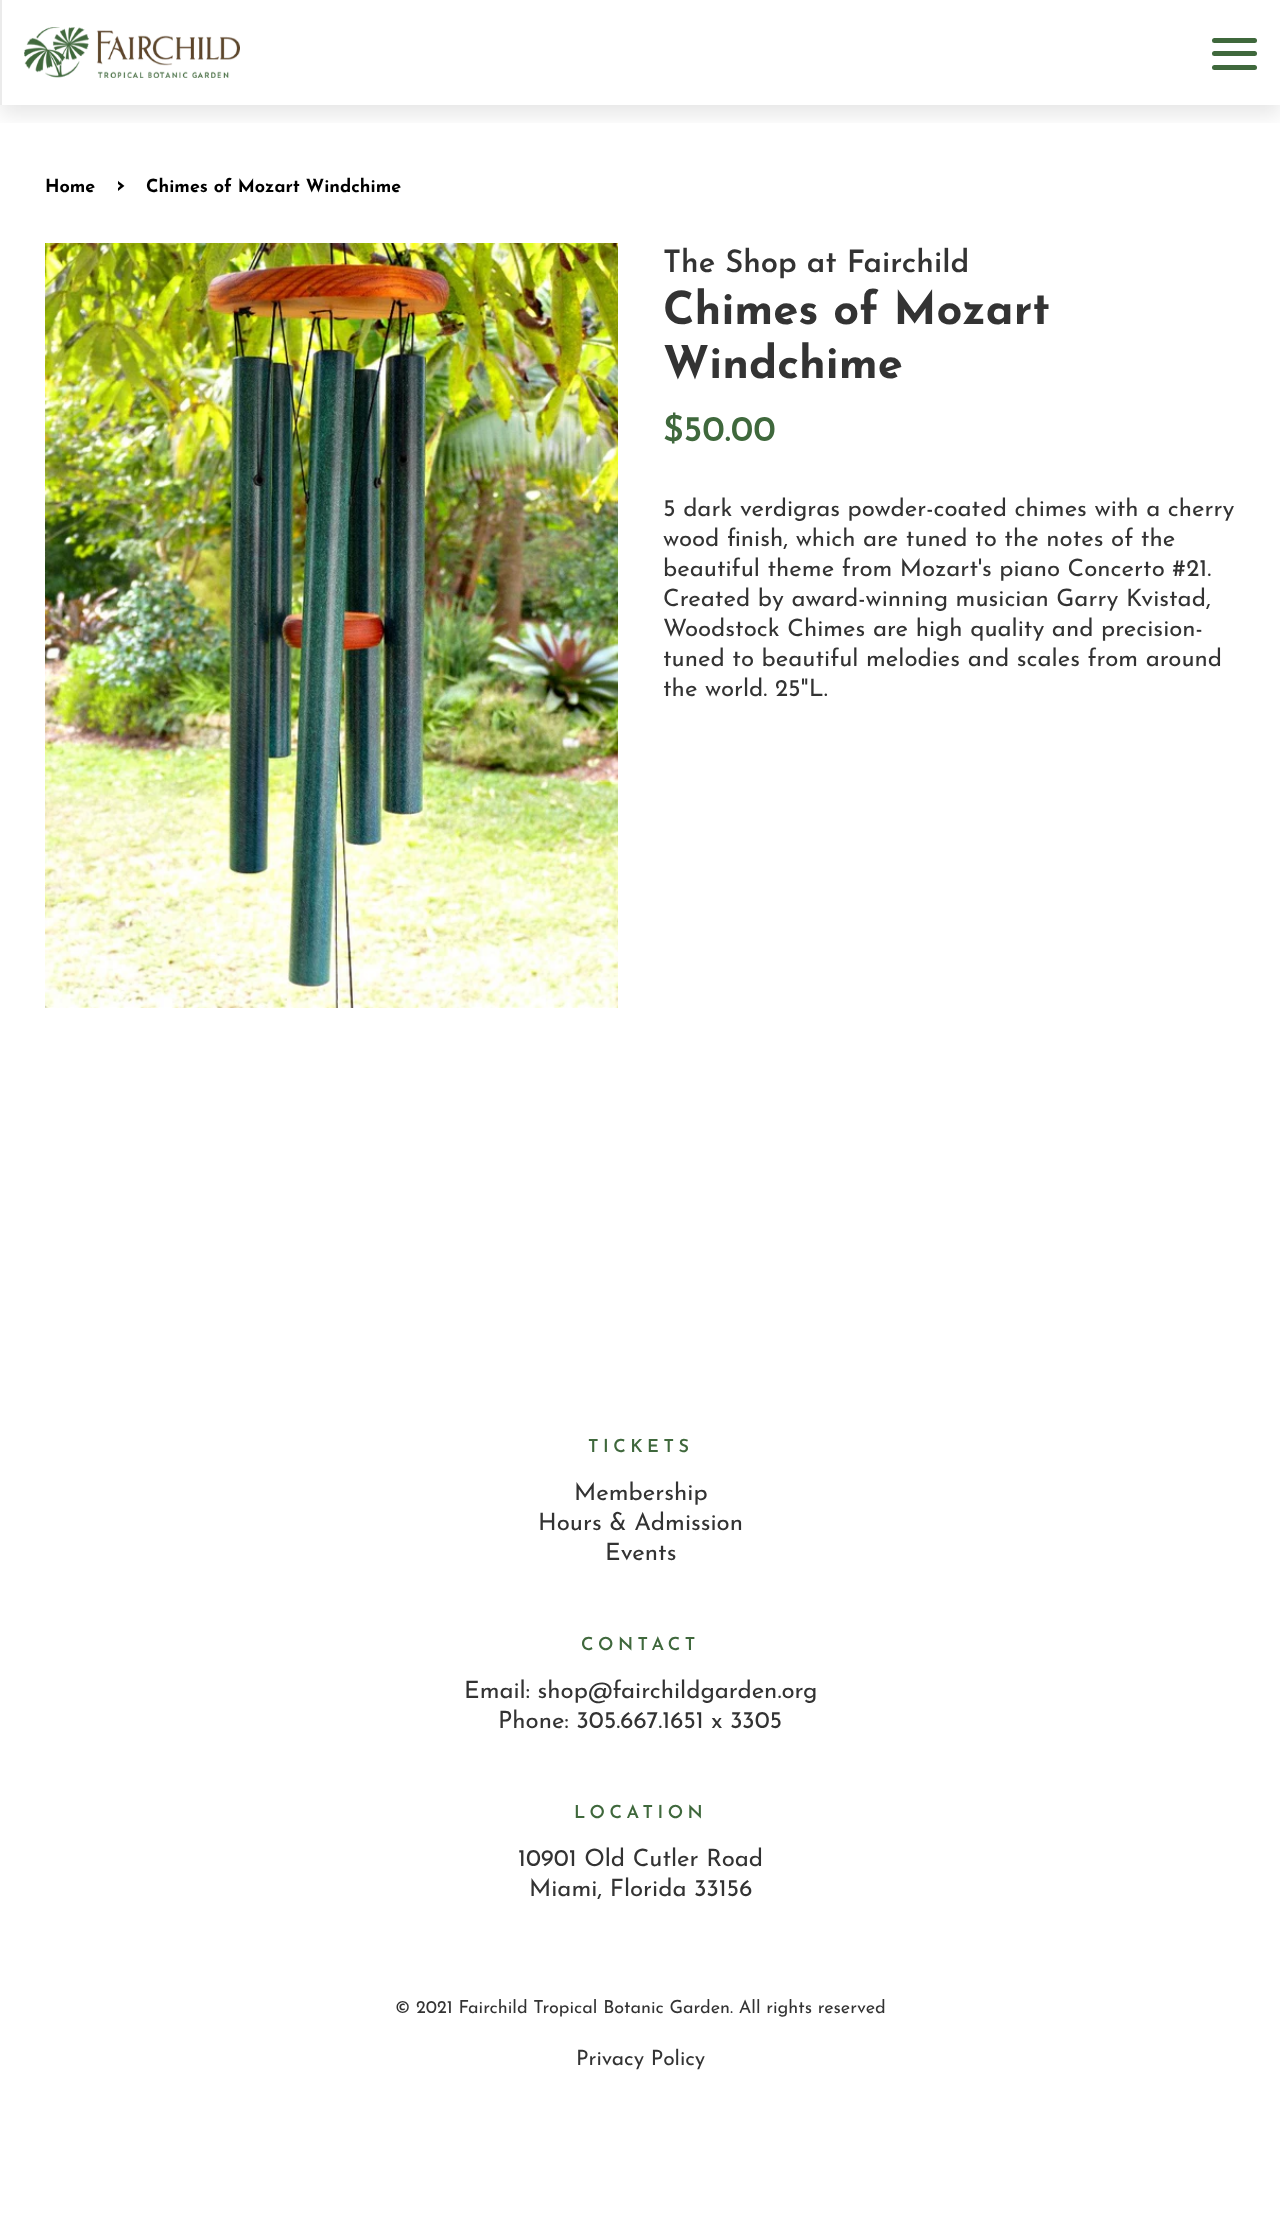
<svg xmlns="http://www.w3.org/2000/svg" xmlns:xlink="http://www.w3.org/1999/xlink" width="1280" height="2235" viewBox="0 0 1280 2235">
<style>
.cls-1{font:bold 18px Josefin Sans;fill:#000000}
.cls-2{font:bold 25px Josefin Sans;fill:#000000}
.cls-3{font:600 31px Josefin Sans;fill:#333333}
.cls-4{font:bold 45.25px Josefin Sans;fill:#333333}
.cls-5{font:600 36px Josefin Sans;fill:#3f683c}
.cls-6{font:24px Josefin Sans;fill:#333333}
.cls-7{font:600 18px Josefin Sans;letter-spacing:4.5px;fill:#3f683c}
.cls-8{font:18px Josefin Sans;fill:#333333}
.cls-9{font:21px Josefin Sans;fill:#333333}
</style>
<defs>
<clipPath id="clip1"><rect x="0" y="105" width="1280" height="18"/></clipPath>
</defs>
<rect width="100%" height="100%" fill="#ffffff"/>
<g clip-path="url(#clip1)">
<rect fill="#000000" fill-opacity="0.1" filter="blur(10.5px)" x="0" y="9" width="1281" height="105"/>
</g>
<rect fill="#ebebeb" x="0" y="0" width="2" height="105"/>
<rect fill="#3f683c" x="1212" y="38" width="45" height="5" rx="2.5"/>
<rect fill="#3f683c" x="1212" y="51" width="45" height="5" rx="2.5"/>
<rect fill="#3f683c" x="1212" y="65" width="45" height="5" rx="2.5"/>
<image xlink:href="image0.png" x="24" y="27" width="216" height="51"/>
<image xlink:href="image1.png" x="45" y="243" width="573" height="765"/>
<text class="cls-1" x="45" y="192">Home</text>
<text class="cls-2" x="116" y="192">›</text>
<text class="cls-1" x="146" y="192">Chimes of Mozart Windchime</text>
<text class="cls-3" x="663" y="272">The Shop at Fairchild</text>
<text class="cls-4"><tspan x="663" y="324">Chimes of Mozart</tspan><tspan x="663" y="378">Windchime</tspan></text>
<text class="cls-5" x="663" y="441">$50.00</text>
<text class="cls-6"><tspan x="663" y="516">5 dark verdigras powder-coated chimes with a cherry</tspan><tspan x="663" y="546">wood finish, which are tuned to the notes of the</tspan><tspan x="663" y="576">beautiful theme from Mozart's piano Concerto #21.</tspan><tspan x="663" y="606">Created by award-winning musician Garry Kvistad,</tspan><tspan x="663" y="636">Woodstock Chimes are high quality and precision-</tspan><tspan x="663" y="666">tuned to beautiful melodies and scales from around</tspan><tspan x="663" y="696">the world. 25"L.</tspan></text>
<text class="cls-7" x="588" y="1452">TICKETS</text>
<text class="cls-6" x="574" y="1500">Membership</text>
<text class="cls-6" x="538" y="1530">Hours &amp; Admission</text>
<text class="cls-6" x="605" y="1560">Events</text>
<text class="cls-7" x="581" y="1650">CONTACT</text>
<text class="cls-6" x="464" y="1698">Email: shop@fairchildgarden.org</text>
<text class="cls-6" x="498" y="1728">Phone: 305.667.1651 x 3305</text>
<text class="cls-7" x="574" y="1818">LOCATION</text>
<text class="cls-6" x="518" y="1866">10901 Old Cutler Road</text>
<text class="cls-6" x="529" y="1896">Miami, Florida 33156</text>
<text class="cls-8" x="395" y="2013">© 2021 Fairchild Tropical Botanic Garden. All rights reserved</text>
<text class="cls-9" x="576" y="2065">Privacy Policy</text>
</svg>
